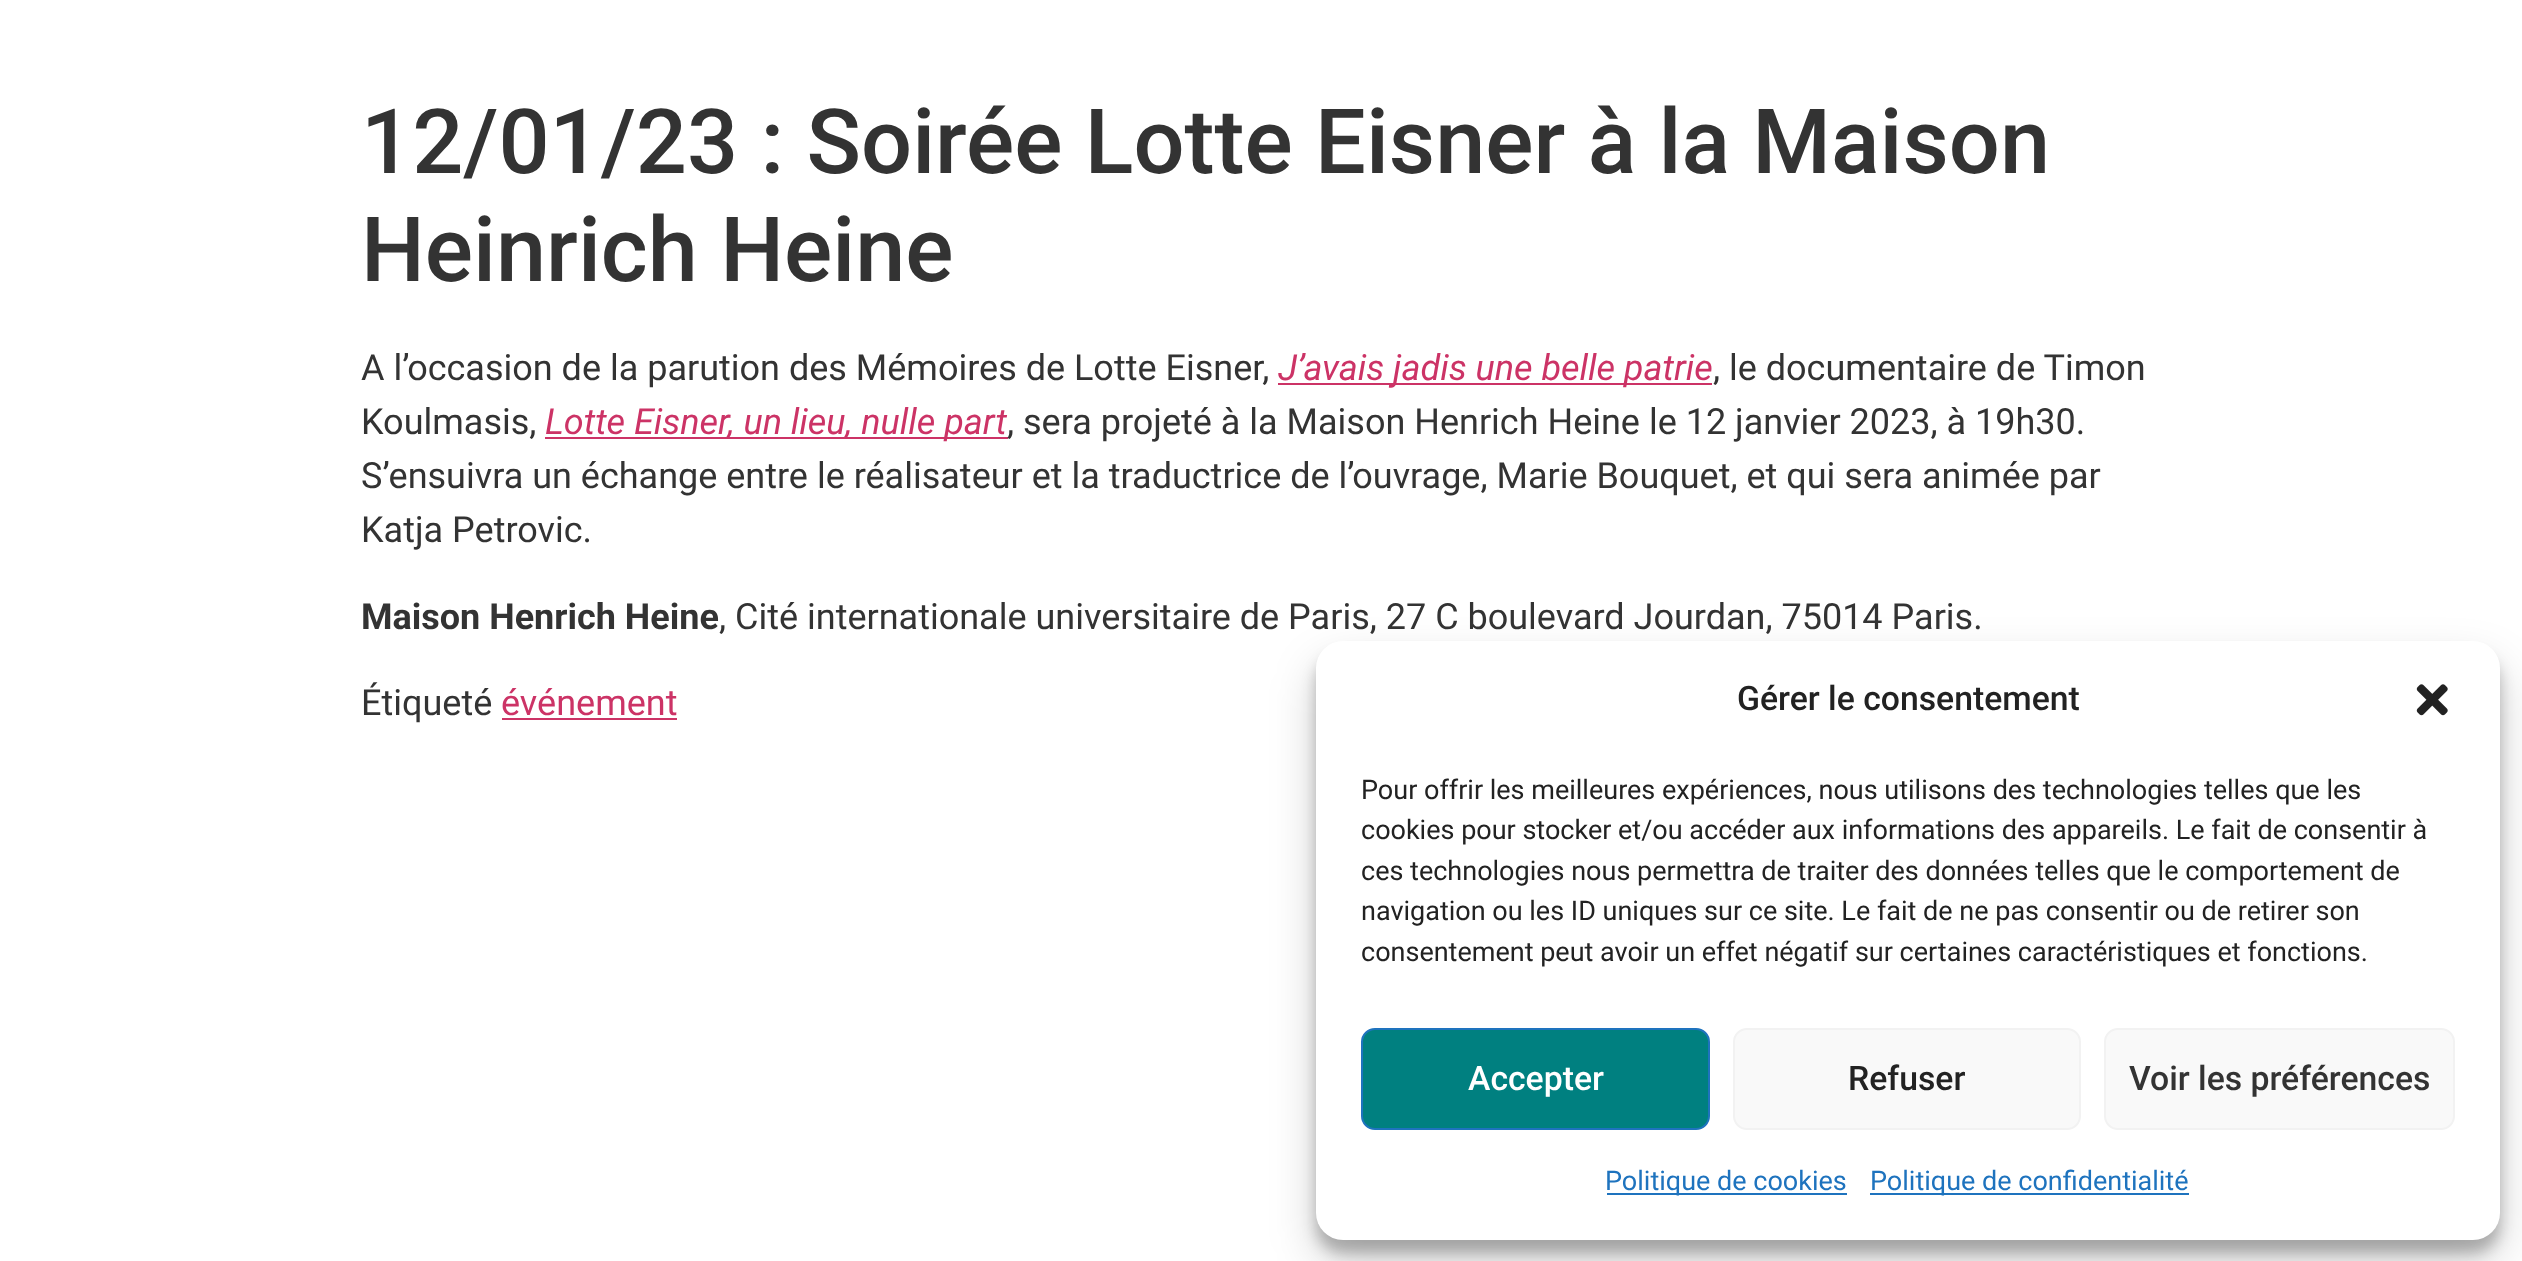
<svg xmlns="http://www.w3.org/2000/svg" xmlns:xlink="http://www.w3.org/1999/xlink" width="2522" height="1261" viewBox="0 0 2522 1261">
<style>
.cls-1{font:500 90px Roboto;fill:#333333}
.cls-2{font:36px Roboto;fill:#333333}
.cls-3{font:italic 36px Roboto;fill:#cc3366}
.cls-4{font:bold 36px Roboto;fill:#333333}
.cls-5{font:36px Roboto;fill:#cc3366}
.cls-6{font:500 33.75px Roboto;fill:#222222}
.cls-7{font:27px Roboto;fill:#222222}
.cls-8{font:500 33.75px Roboto;fill:#ffffff}
.cls-9{font:500 33.75px Roboto;fill:#333333}
.cls-10{font:27px Roboto;fill:#1e73be}
</style>
<rect width="100%" height="100%" fill="#ffffff"/>
<rect fill="#cc3366" x="1278" y="383" width="434" height="2"/>
<rect fill="#cc3366" x="545" y="437" width="463" height="2"/>
<rect fill="#cc3366" x="502" y="718" width="175" height="2"/>
<rect fill="#000000" fill-opacity="0.23" filter="blur(7px)" x="1316" y="655" width="1184" height="598" rx="27"/>
<rect fill="#000000" fill-opacity="0.19" filter="blur(22.5px)" x="1316" y="664" width="1184" height="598" rx="27"/>
<rect fill="#ffffff" x="1316" y="641" width="1184" height="599" rx="27"/>
<image xlink:href="image0.png" x="2416" y="684" width="32" height="32"/>
<rect fill="#008080" stroke="#1e73be" stroke-width="2" x="1362" y="1029" width="347" height="100" rx="13"/>
<rect fill="#f9f9f9" stroke="#f2f2f2" stroke-width="2" x="1734" y="1029" width="346" height="100" rx="13"/>
<rect fill="#f9f9f9" stroke="#f2f2f2" stroke-width="2" x="2105" y="1029" width="349" height="100" rx="13"/>
<rect fill="#1e73be" x="1607" y="1193" width="240" height="2"/>
<rect fill="#1e73be" x="1870" y="1193" width="319" height="2"/>
<text class="cls-1"><tspan x="361" y="173">12/01/23 : Soirée Lotte Eisner à la Maison</tspan><tspan x="361" y="281">Heinrich Heine</tspan></text>
<text class="cls-2" x="361" y="380">A l’occasion de la parution des Mémoires de Lotte Eisner,</text>
<text class="cls-3" x="1278" y="380">J’avais jadis une belle patrie</text>
<text class="cls-2" x="1713" y="380">, le documentaire de Timon</text>
<text class="cls-2" x="361" y="434">Koulmasis,</text>
<text class="cls-3" x="545" y="434">Lotte Eisner, un lieu, nulle part</text>
<text class="cls-2" x="1007" y="434">, sera projeté à la Maison Henrich Heine le 12 janvier 2023, à 19h30.</text>
<text class="cls-2"><tspan x="361" y="488">S’ensuivra un échange entre le réalisateur et la traductrice de l’ouvrage, Marie Bouquet, et qui sera animée par</tspan><tspan x="361" y="542">Katja Petrovic.</tspan></text>
<text class="cls-4" x="361" y="629">Maison Henrich Heine</text>
<text class="cls-2" x="719" y="629">, Cité internationale universitaire de Paris, 27 C boulevard Jourdan, 75014 Paris.</text>
<text class="cls-2" x="361" y="715">Étiqueté</text>
<text class="cls-5" x="501" y="715">événement</text>
<text class="cls-6" x="1737" y="710">Gérer le consentement</text>
<text class="cls-7"><tspan x="1361" y="799">Pour offrir les meilleures expériences, nous utilisons des technologies telles que les</tspan><tspan x="1361" y="839">cookies pour stocker et/ou accéder aux informations des appareils. Le fait de consentir à</tspan><tspan x="1361" y="880">ces technologies nous permettra de traiter des données telles que le comportement de</tspan><tspan x="1361" y="920">navigation ou les ID uniques sur ce site. Le fait de ne pas consentir ou de retirer son</tspan><tspan x="1361" y="961">consentement peut avoir un effet négatif sur certaines caractéristiques et fonctions.</tspan></text>
<text class="cls-8" x="1468" y="1090">Accepter</text>
<text class="cls-6" x="1848" y="1090">Refuser</text>
<text class="cls-9" x="2129" y="1090">Voir les préférences</text>
<text class="cls-10" x="1605" y="1190">Politique de cookies</text>
<text class="cls-10" x="1870" y="1190">Politique de confidentialité</text>
</svg>
